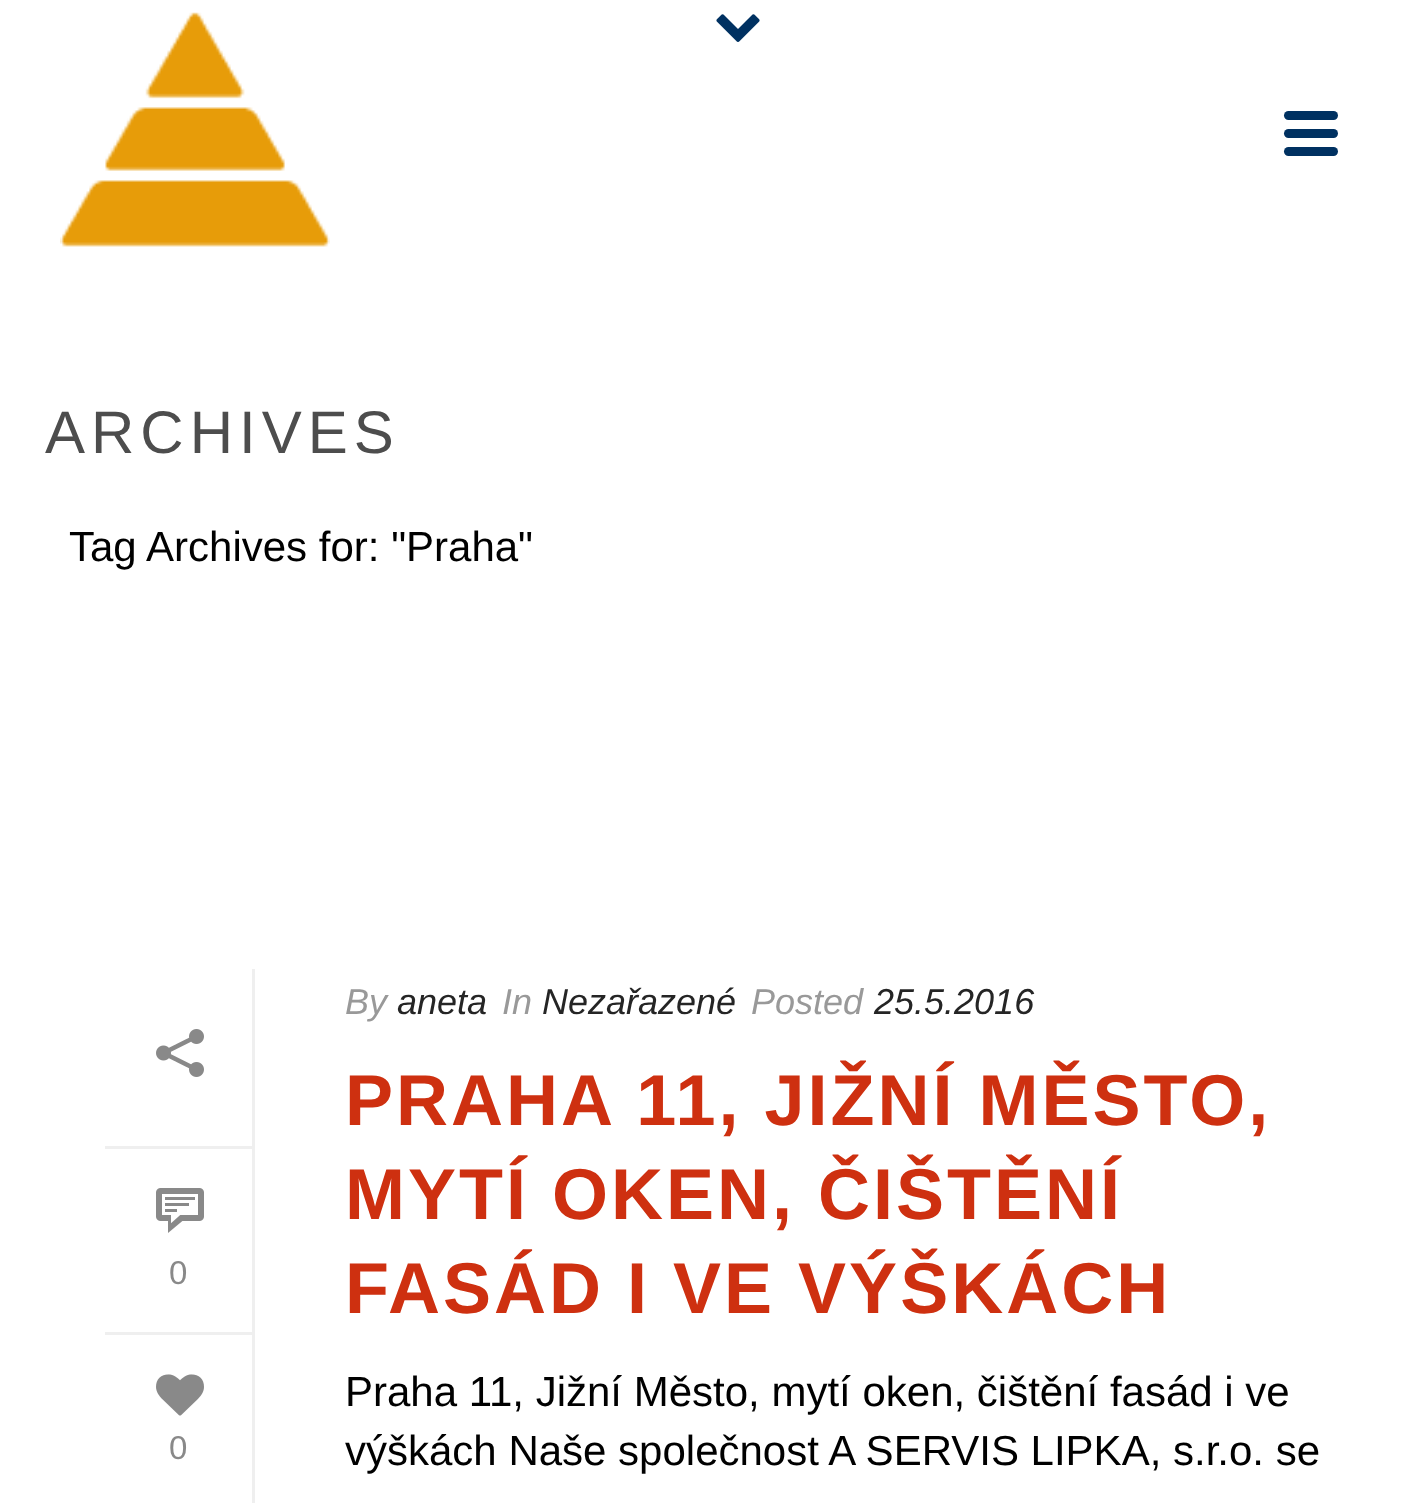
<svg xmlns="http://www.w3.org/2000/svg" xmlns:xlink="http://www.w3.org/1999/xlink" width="1426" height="1503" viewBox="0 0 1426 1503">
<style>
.cls-1{font:60px Liberation Sans;letter-spacing:6px;fill:#4d4d4d}
.cls-2{font:42px Liberation Sans;fill:#000000}
.cls-3{font:33px Liberation Sans;fill:#898989}
.cls-4{font:italic 36px Liberation Sans;fill:#999999}
.cls-5{font:italic 36px Liberation Sans;fill:#252525}
.cls-6{font:bold 72px Liberation Sans;letter-spacing:3px;fill:#ce3010}
</style>
<rect width="100%" height="100%" fill="#ffffff"/>
<image xlink:href="image0.png" x="60" y="12" width="270" height="235"/>
<rect fill="#003161" x="1284" y="111" width="54" height="9" rx="4.5"/>
<rect fill="#003161" x="1284" y="129" width="54" height="9" rx="4.5"/>
<rect fill="#003161" x="1284" y="147" width="54" height="9" rx="4.5"/>
<image xlink:href="image1.png" x="716" y="14" width="44" height="28"/>
<rect fill="#efefef" x="252" y="969" width="3" height="534"/>
<rect fill="#efefef" x="105" y="1146" width="147" height="3"/>
<image xlink:href="image2.png" x="156" y="1029" width="48" height="48"/>
<rect fill="#efefef" x="105" y="1332" width="147" height="3"/>
<image xlink:href="image3.png" x="156" y="1188" width="48" height="45"/>
<image xlink:href="image4.png" x="156" y="1374" width="48" height="42"/>
<text class="cls-1" x="45" y="453">ARCHIVES</text>
<text class="cls-2" x="69" y="561">Tag Archives for: "Praha"</text>
<text class="cls-3" x="169" y="1284">0</text>
<text class="cls-3" x="169" y="1459">0</text>
<text class="cls-4" x="345" y="1014">By</text>
<text class="cls-5" x="397" y="1014">aneta</text>
<text class="cls-4" x="502" y="1014">In</text>
<text class="cls-5" x="542" y="1014">Nezařazené</text>
<text class="cls-4" x="751" y="1014">Posted</text>
<text class="cls-5" x="874" y="1014">25.5.2016</text>
<text class="cls-6"><tspan x="345" y="1125">PRAHA 11, JIŽNÍ MĚSTO,</tspan><tspan x="345" y="1219">MYTÍ OKEN, ČIŠTĚNÍ</tspan><tspan x="345" y="1313">FASÁD I VE VÝŠKÁCH</tspan></text>
<text class="cls-2"><tspan x="345" y="1406">Praha 11, Jižní Město, mytí oken, čištění fasád i ve</tspan><tspan x="345" y="1465">výškách Naše společnost A SERVIS LIPKA, s.r.o. se</tspan></text>
</svg>
